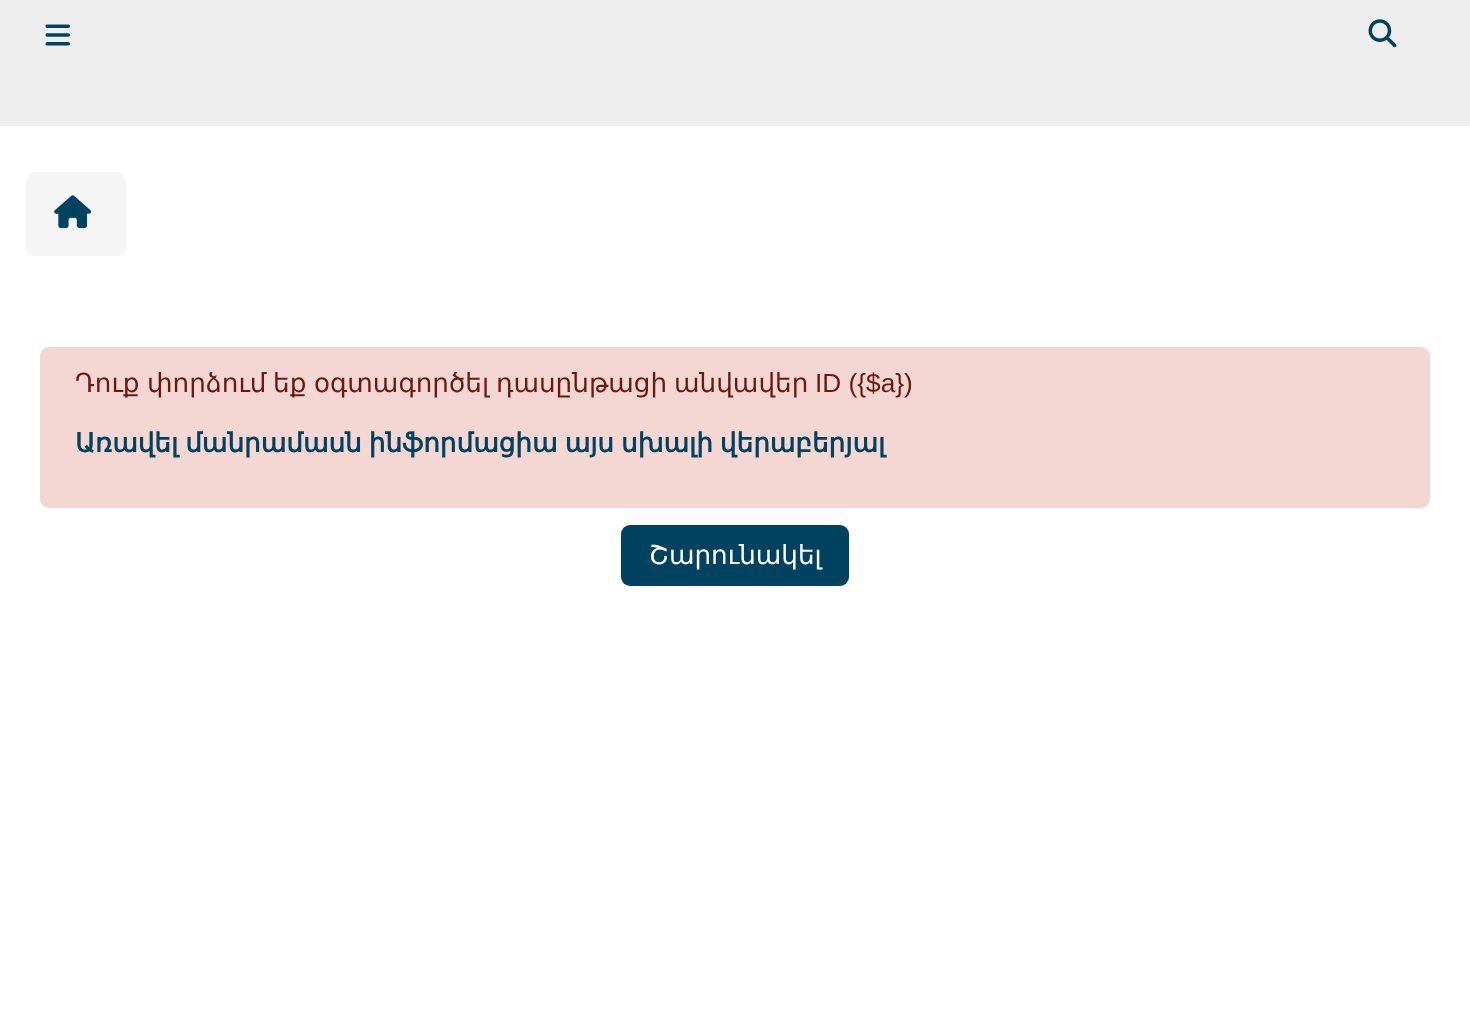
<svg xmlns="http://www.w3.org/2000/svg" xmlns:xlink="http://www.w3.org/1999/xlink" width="1470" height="1023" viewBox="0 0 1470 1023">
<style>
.cls-1{font:26.25px DejaVu Sans;fill:#691911}
.cls-2{font:26.25px Liberation Sans;fill:#691911}
.cls-3{font:bold 26.25px DejaVu Sans;fill:#004260}
.cls-4{font:26.25px DejaVu Sans;fill:#ffffff}
</style>
<rect width="100%" height="100%" fill="#ffffff"/>
<rect fill="#eeeeee" x="0" y="0" width="1470" height="126"/>
<image xlink:href="image0.png" x="45" y="24" width="25" height="22"/>
<image xlink:href="image1.png" x="1368" y="19" width="29" height="29"/>
<rect fill="#f5f5f5" x="26" y="172" width="100" height="84" rx="9"/>
<image xlink:href="image2.png" x="54" y="195" width="38" height="34"/>
<rect fill="#f4d6d2" x="40" y="347" width="1390" height="161" rx="9"/>
<rect fill="#014260" x="621" y="525" width="228" height="61" rx="9"/>
<text class="cls-1" x="75" y="392">Դուք</text>
<text class="cls-1" x="147" y="392">փորձում</text>
<text class="cls-1" x="273" y="392">եք</text>
<text class="cls-1" x="314" y="392">օգտագործել</text>
<text class="cls-1" x="496" y="392">դասընթացի</text>
<text class="cls-1" x="674" y="392">անվավեր</text>
<text class="cls-2" x="815" y="392">ID ({$a})</text>
<text class="cls-3" x="75" y="452" word-spacing="-1.25">Առավել մանրամասն ինֆորմացիա այս սխալի վերաբերյալ</text>
<text class="cls-4" x="649" y="564">Շարունակել</text>
</svg>
